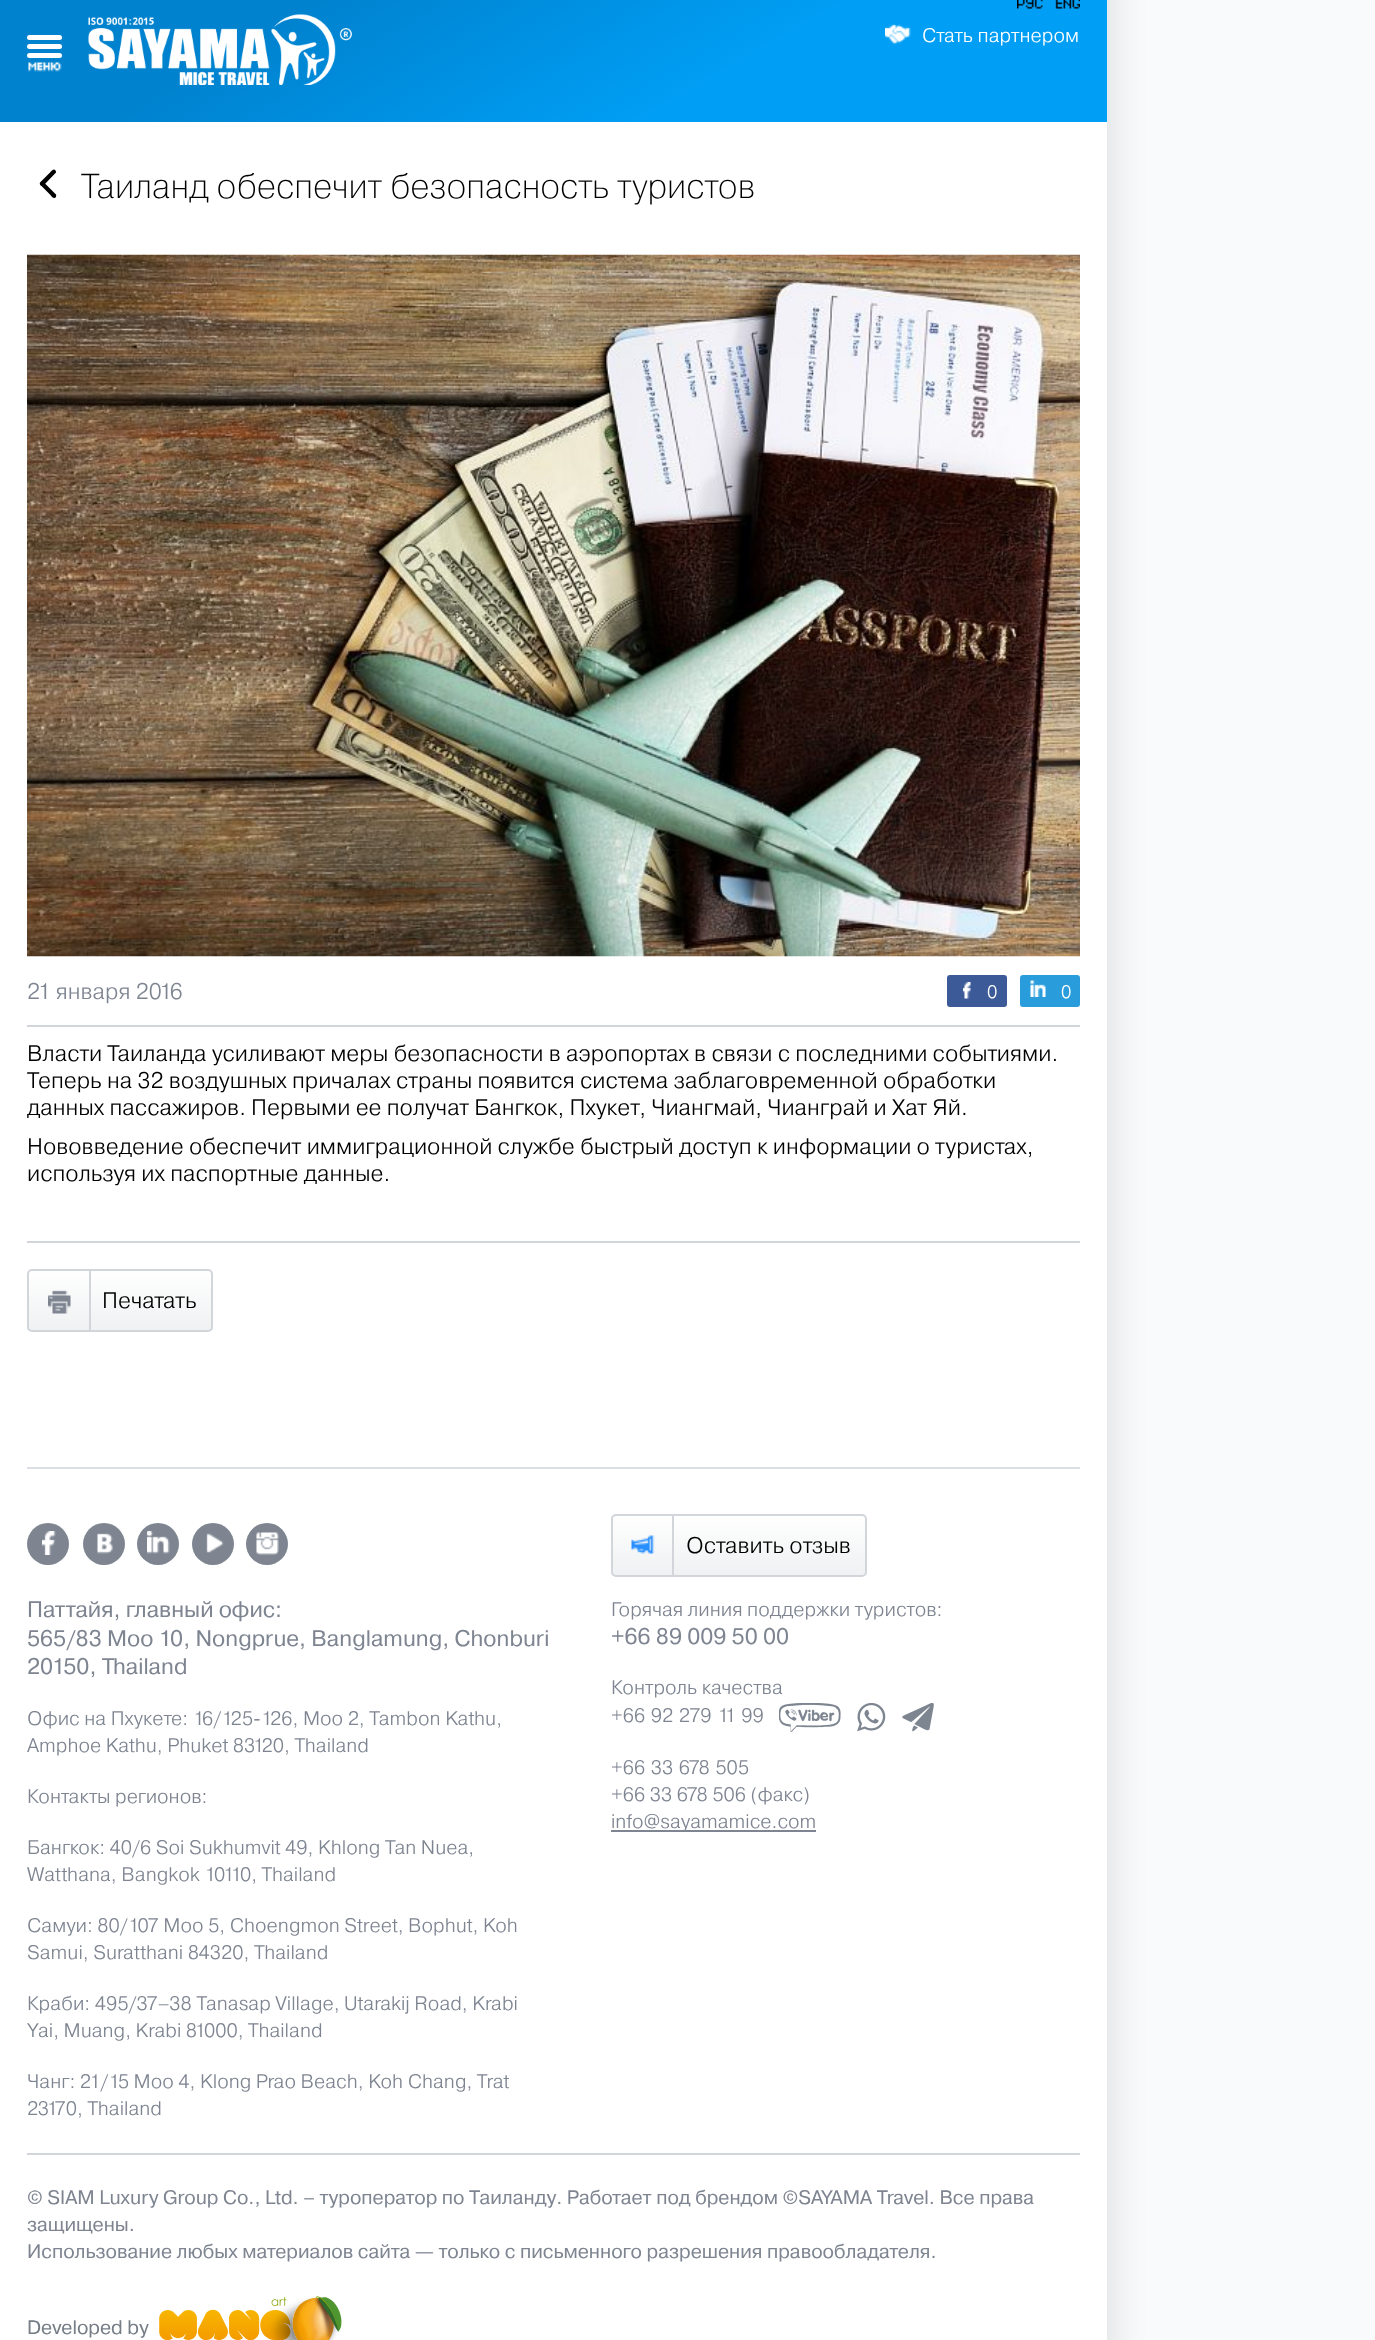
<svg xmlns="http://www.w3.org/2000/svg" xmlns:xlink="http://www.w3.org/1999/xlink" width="1375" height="2340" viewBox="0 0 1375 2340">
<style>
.cls-1{font:300 19.5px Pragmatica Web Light;fill:#ffffff}
.cls-2{font:300 22.5px Pragmatica Web Light;fill:#000000}
.cls-3{font:22.5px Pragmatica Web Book;fill:#7e8591}
.cls-4{font:300 19.5px Pragmatica Web Light;fill:#7e8591}
.cls-5{font:19.5px Pragmatica Web Book;fill:#7e8591}
.cls-6{font:19.5px Pragmatica Web Book;fill:#767d86}
.cls-7{font:200 34.5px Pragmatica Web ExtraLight;fill:#000000}
.cls-8{font:300 22.5px Pragmatica Web Light;fill:#7e8591}
.cls-9{font:300 18px Pragmatica Web Light;fill:#ffffff}
</style>
<defs>
<clipPath id="clip1"><rect x="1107" y="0" width="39" height="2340"/></clipPath>
<linearGradient id="g1" gradientUnits="userSpaceOnUse" x1="721" y1="344" x2="386" y2="-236"><stop offset="0" stop-color="#009ef4"/><stop offset="0.35" stop-color="#009ef4"/><stop offset="0.75" stop-color="#0082ce"/><stop offset="1" stop-color="#0082ce"/></linearGradient>
<clipPath id="clip2"><rect x="611" y="1514" width="256" height="63" rx="5"/></clipPath>
<linearGradient id="g2" gradientUnits="userSpaceOnUse" x1="739" y1="1515" x2="739" y2="1575"><stop offset="0" stop-color="#ffffff"/><stop offset="1" stop-color="#eff1f2"/></linearGradient>
<clipPath id="clip3"><rect x="27" y="1269" width="186" height="63" rx="5"/></clipPath>
<linearGradient id="g3" gradientUnits="userSpaceOnUse" x1="120" y1="1271" x2="120" y2="1331"><stop offset="0" stop-color="#ffffff"/><stop offset="1" stop-color="#eff1f2"/></linearGradient>
</defs>
<rect width="100%" height="100%" fill="#f8fafb"/>
<rect fill="#ffffff" x="0" y="122" width="1107" height="1345"/>
<g clip-path="url(#clip1)">
<rect fill="#e4e6e7" filter="blur(13.5px)" x="11" y="-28" width="1107" height="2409"/>
</g>
<rect fill="url(#g1)" x="0" y="0" width="1107" height="122"/>
<image xlink:href="image0.png" x="1017" y="0" width="26" height="9"/>
<image xlink:href="image1.png" x="1055" y="0" width="25" height="9"/>
<rect fill="#ffffff" x="27" y="35" width="35" height="5" rx="2.5"/>
<rect fill="#ffffff" x="27" y="44" width="35" height="5" rx="2.5"/>
<rect fill="#ffffff" x="27" y="53" width="35" height="5" rx="2.5"/>
<image xlink:href="image2.png" x="88" y="14" width="264" height="71"/>
<image xlink:href="image3.png" x="885" y="24" width="26" height="21"/>
<image xlink:href="image4.png" x="28" y="62" width="34" height="10"/>
<rect fill="#ffffff" x="0" y="1467" width="1107" height="873"/>
<rect fill="#dce0e5" x="27" y="1467" width="1053" height="2"/>
<circle fill="#7e8591" cx="48" cy="1544" r="21"/>
<image xlink:href="image5.png" x="42" y="1531" width="14" height="24"/>
<circle fill="#7e8591" cx="104" cy="1544" r="21"/>
<image xlink:href="image6.png" x="97" y="1533" width="16" height="21"/>
<circle fill="#7e8591" cx="158" cy="1544" r="21"/>
<image xlink:href="image7.png" x="147" y="1531" width="23" height="23"/>
<circle fill="#7e8591" cx="213" cy="1544" r="21"/>
<image xlink:href="image8.png" x="206" y="1533" width="18" height="20"/>
<circle fill="#7e8591" cx="267" cy="1544" r="21"/>
<image xlink:href="image9.png" x="256" y="1532" width="23" height="23"/>
<g clip-path="url(#clip2)">
<rect fill="url(#g2)" x="611" y="1515" width="256" height="60"/>
</g>
<rect fill="none" stroke="#d2d6db" stroke-width="2" x="612" y="1515" width="254" height="61" rx="4"/>
<image xlink:href="image10.png" x="631" y="1535" width="24" height="19"/>
<rect fill="#d2d6db" x="672" y="1515" width="2" height="60"/>
<image xlink:href="image11.png" x="779" y="1703" width="155" height="29"/>
<rect fill="#7e8591" x="611" y="1830" width="205" height="2"/>
<rect fill="#d2d6db" x="27" y="2153" width="1053" height="2"/>
<image xlink:href="image12.png" x="159" y="2296" width="183" height="44"/>
<path fill="#000000" d="M40.5 182L50.5 172C51.5 171 54 168 55.5 170.5C56 171 56 172 56 172.5L43.5 185.5C41 187 38.5 183.5 40.5 182Z"/>
<path fill="#000000" d="M44 182.5L56 194.5C56.5 195.5 56 196 56 197C54 199.5 51.5 196.5 50.5 195L40.5 185C39 183 42 180.5 44 182.5Z"/>
<image xlink:href="image13.png" x="27" y="254" width="1053" height="703"/>
<rect fill="#d2d6db" x="27" y="1025" width="1053" height="2"/>
<rect fill="#3c5a98" x="947" y="975" width="60" height="32" rx="3"/>
<image xlink:href="image14.png" x="963" y="982" width="8" height="17"/>
<rect fill="#299cdb" x="1020" y="975" width="60" height="32" rx="3"/>
<image xlink:href="image15.png" x="1030" y="980" width="16" height="17"/>
<rect fill="#d2d6db" x="27" y="1241" width="1053" height="2"/>
<g clip-path="url(#clip3)">
<rect fill="url(#g3)" x="27" y="1271" width="186" height="60"/>
</g>
<rect fill="none" stroke="#d2d6db" stroke-width="2" x="28" y="1270" width="184" height="61" rx="4"/>
<image xlink:href="image16.png" x="48" y="1290" width="23" height="24"/>
<rect fill="#d2d6db" x="89" y="1271" width="2" height="60"/>
<text class="cls-1" x="922" y="42">Стать партнером</text>
<text class="cls-2" x="686" y="1553">Оставить отзыв</text>
<text class="cls-3"><tspan x="27" y="1617">Паттайя, главный офис:</tspan><tspan x="27" y="1646">565/83 Moo 10, Nongprue, Banglamung, Chonburi</tspan><tspan x="27" y="1674">20150, Thailand</tspan></text>
<text class="cls-4"><tspan x="27" y="1725">Офис на Пхукете: 16/125-126, Moo 2, Tambon Kathu,</tspan><tspan x="27" y="1752">Amphoe Kathu, Phuket 83120, Thailand</tspan></text>
<text class="cls-4" x="27" y="1803">Контакты регионов:</text>
<text class="cls-4"><tspan x="27" y="1854">Бангкок: 40/6 Soi Sukhumvit 49, Khlong Tan Nuea,</tspan><tspan x="27" y="1881">Watthana, Bangkok 10110, Thailand</tspan></text>
<text class="cls-4"><tspan x="27" y="1932">Самуи: 80/107 Moo 5, Choengmon Street, Bophut, Koh</tspan><tspan x="27" y="1959">Samui, Suratthani 84320, Thailand</tspan></text>
<text class="cls-4"><tspan x="27" y="2010">Краби: 495/37–38 Tanasap Village, Utarakij Road, Krabi</tspan><tspan x="27" y="2037">Yai, Muang, Krabi 81000, Thailand</tspan></text>
<text class="cls-4"><tspan x="27" y="2088">Чанг: 21/15 Moo 4, Klong Prao Beach, Koh Chang, Trat</tspan><tspan x="27" y="2115">23170, Thailand</tspan></text>
<text class="cls-4" x="611" y="1616">Горячая линия поддержки туристов:</text>
<text class="cls-3" x="611" y="1644">+66 89 009 50 00</text>
<text class="cls-4"><tspan x="611" y="1694">Контроль качества</tspan><tspan x="611" y="1722" word-spacing="1">+66 92 279 11 99</tspan></text>
<text class="cls-4"><tspan x="611" y="1774" word-spacing="1">+66 33 678 505</tspan><tspan x="611" y="1801">+66 33 678 506 (факс)</tspan><tspan x="611" y="1828">info@sayamamice.com</tspan></text>
<text class="cls-5"><tspan x="27" y="2204">© SIAM Luxury Group Co., Ltd. – туроператор по Таиланду. Работает под брендом ©SAYAMA Travel. Все права</tspan><tspan x="27" y="2231">защищены.</tspan><tspan x="27" y="2258">Использование любых материалов сайта — только с письменного разрешения правообладателя.</tspan></text>
<text class="cls-6" x="27" y="2334">Developed by</text>
<text class="cls-7" x="81" y="198">Таиланд обеспечит безопасность туристов</text>
<text class="cls-8" x="27" y="999">21 января 2016</text>
<text class="cls-9" x="987" y="998">0</text>
<text class="cls-9" x="1061" y="998">0</text>
<text class="cls-2"><tspan x="27" y="1061">Власти Таиланда усиливают меры безопасности в аэропортах в связи с последними событиями.</tspan><tspan x="27" y="1088">Теперь на 32 воздушных причалах страны появится система заблаговременной обработки</tspan><tspan x="27" y="1115">данных пассажиров. Первыми ее получат Бангкок, Пхукет, Чиангмай, Чианграй и Хат Яй.</tspan><tspan x="27" y="1154">Нововведение обеспечит иммиграционной службе быстрый доступ к информации о туристах,</tspan><tspan x="27" y="1181">используя их паспортные данные.</tspan></text>
<text class="cls-2" x="102" y="1308">Печатать</text>
</svg>
